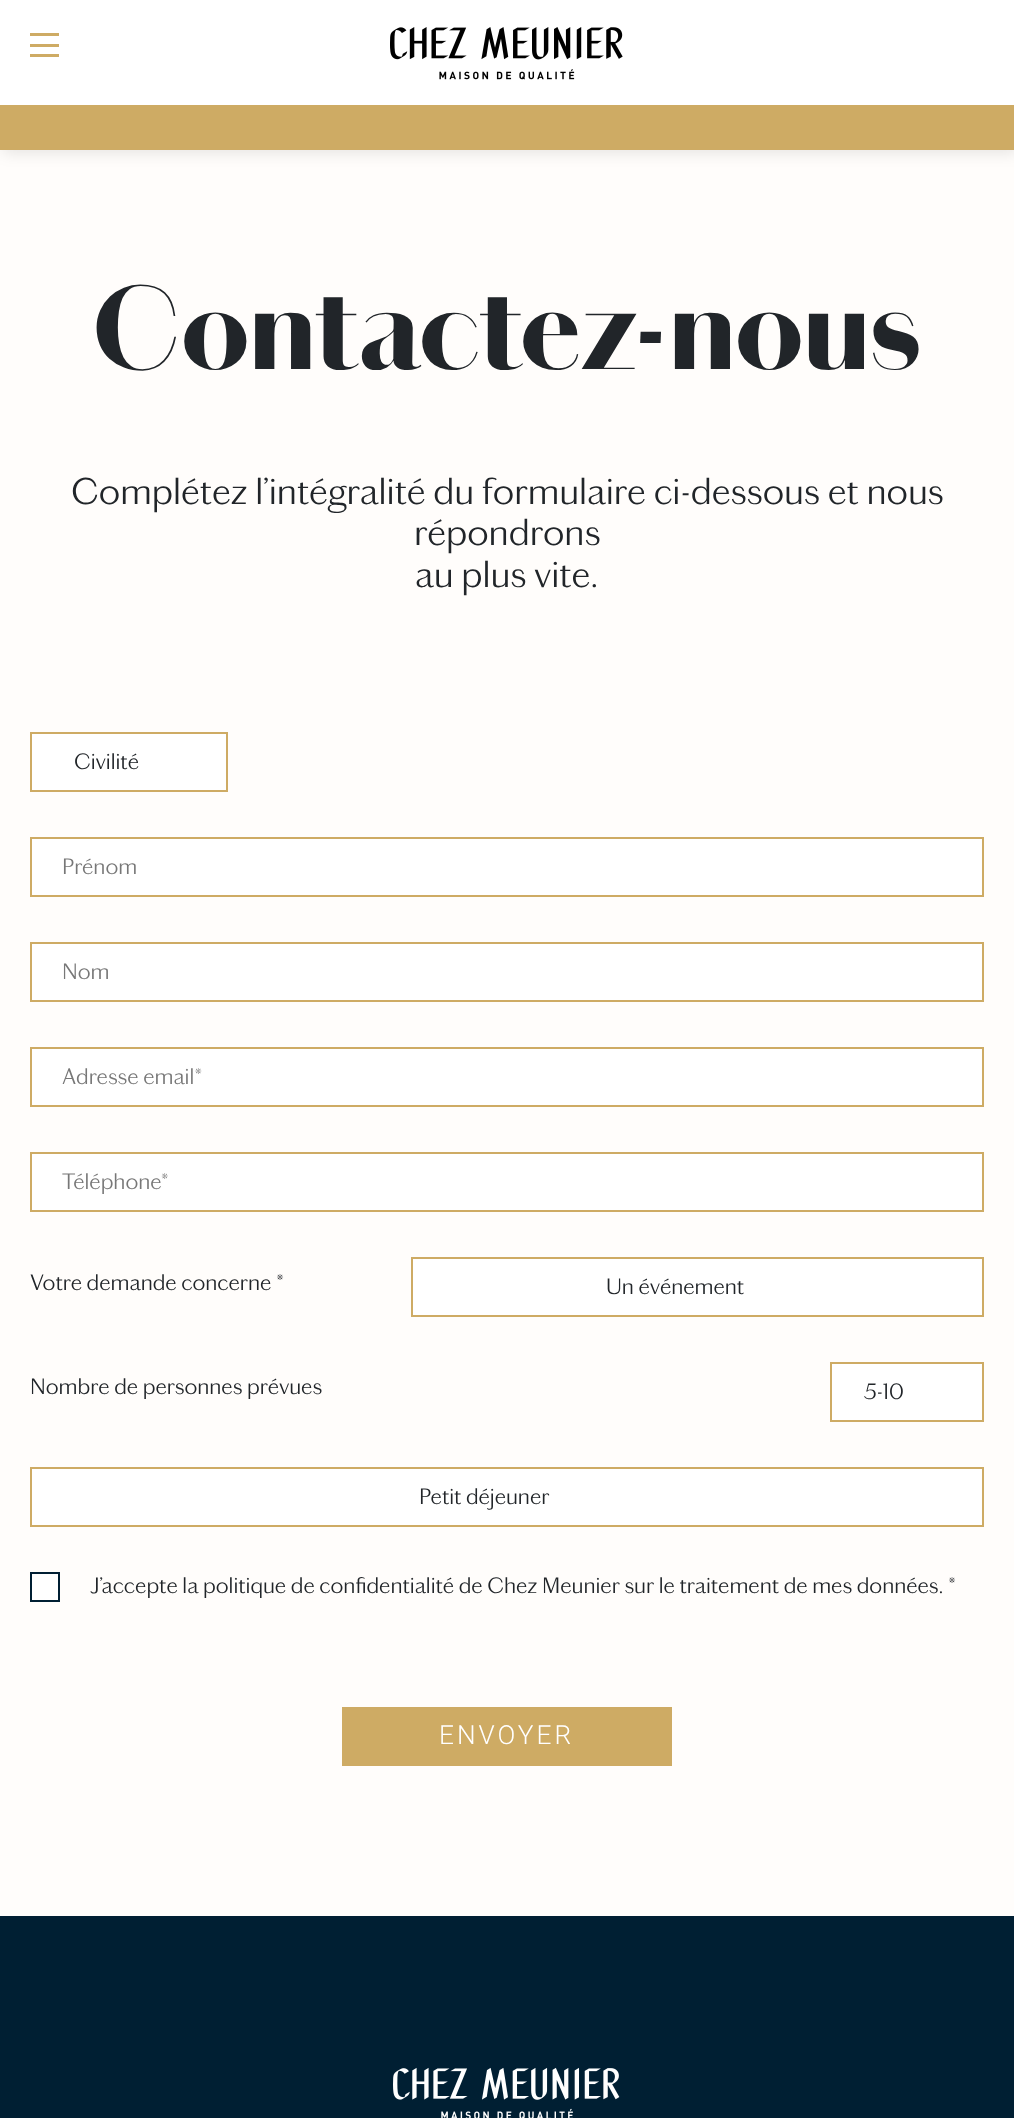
<svg xmlns="http://www.w3.org/2000/svg" xmlns:xlink="http://www.w3.org/1999/xlink" width="1014" height="2118" viewBox="0 0 1014 2118">
<style>
.cls-1{font:900 120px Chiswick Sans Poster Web;fill:#212529}
.cls-2{font:300 37.5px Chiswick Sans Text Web;fill:#212529}
.cls-3{font:300 22.5px Chiswick Sans Text Web;fill:#212529}
.cls-4{font:300 22.5px Chiswick Sans Text Web;fill:#777777}
.cls-5{font:300 26.25px Roboto;letter-spacing:3px;fill:#ffffff}
</style>
<rect width="100%" height="100%" fill="#fffdfb"/>
<rect fill="#000000" fill-opacity="0.1" filter="blur(7.5px)" x="3" y="108" width="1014" height="45"/>
<rect fill="#ffffff" x="0" y="0" width="1014" height="105"/>
<rect fill="#ceab64" x="30" y="44" width="29" height="3"/>
<rect fill="#ceab64" x="30" y="33" width="29" height="3"/>
<rect fill="#ceab64" x="30" y="54" width="29" height="3"/>
<image xlink:href="image0.png" x="390" y="27" width="233" height="53"/>
<rect fill="#ceab64" x="0" y="105" width="1014" height="45"/>
<rect fill="#ffffff" stroke="#ceab64" stroke-width="2" x="31" y="733" width="196" height="58"/>
<rect fill="#ffffff" stroke="#ceab64" stroke-width="2" x="31" y="838" width="952" height="58"/>
<rect fill="#ffffff" stroke="#ceab64" stroke-width="2" x="31" y="943" width="952" height="58"/>
<rect fill="#ffffff" stroke="#ceab64" stroke-width="2" x="31" y="1048" width="952" height="58"/>
<rect fill="#ffffff" stroke="#ceab64" stroke-width="2" x="31" y="1153" width="952" height="58"/>
<rect fill="#ffffff" stroke="#ceab64" stroke-width="2" x="412" y="1258" width="571" height="58"/>
<rect fill="#ffffff" stroke="#ceab64" stroke-width="2" x="831" y="1363" width="152" height="58"/>
<rect fill="#ffffff" stroke="#ceab64" stroke-width="2" x="31" y="1468" width="952" height="58"/>
<rect fill="#ffffff" stroke="#001f33" stroke-width="2" x="31" y="1573" width="28" height="28"/>
<rect fill="#ceab64" x="342" y="1707" width="330" height="59"/>
<rect fill="#001f33" x="0" y="1916" width="1014" height="202"/>
<image xlink:href="image1.png" x="393" y="2067" width="227" height="51"/>
<text class="cls-1" x="93" y="369">Contactez-nous</text>
<text class="cls-2" x="71" y="504">Complétez l’intégralité du formulaire ci-dessous et nous</text>
<text class="cls-2" x="414" y="545">répondrons</text>
<text class="cls-2" x="415" y="587">au plus vite.</text>
<text class="cls-3" x="74" y="769">Civilité</text>
<text class="cls-4" x="62" y="874">Prénom</text>
<text class="cls-4" x="62" y="979">Nom</text>
<text class="cls-4" x="62" y="1084">Adresse email*</text>
<text class="cls-4" x="62" y="1189">Téléphone*</text>
<text class="cls-3" x="30" y="1290">Votre demande concerne *</text>
<text class="cls-3" x="606" y="1294">Un événement</text>
<text class="cls-3" x="30" y="1394">Nombre de personnes prévues</text>
<text class="cls-3" x="864" y="1399">5-10</text>
<text class="cls-3" x="419" y="1504">Petit déjeuner</text>
<text class="cls-3" x="90" y="1593">J’accepte la politique de confidentialité de Chez Meunier sur le traitement de mes données. *</text>
<text class="cls-5" x="439" y="1744">ENVOYER</text>
</svg>
